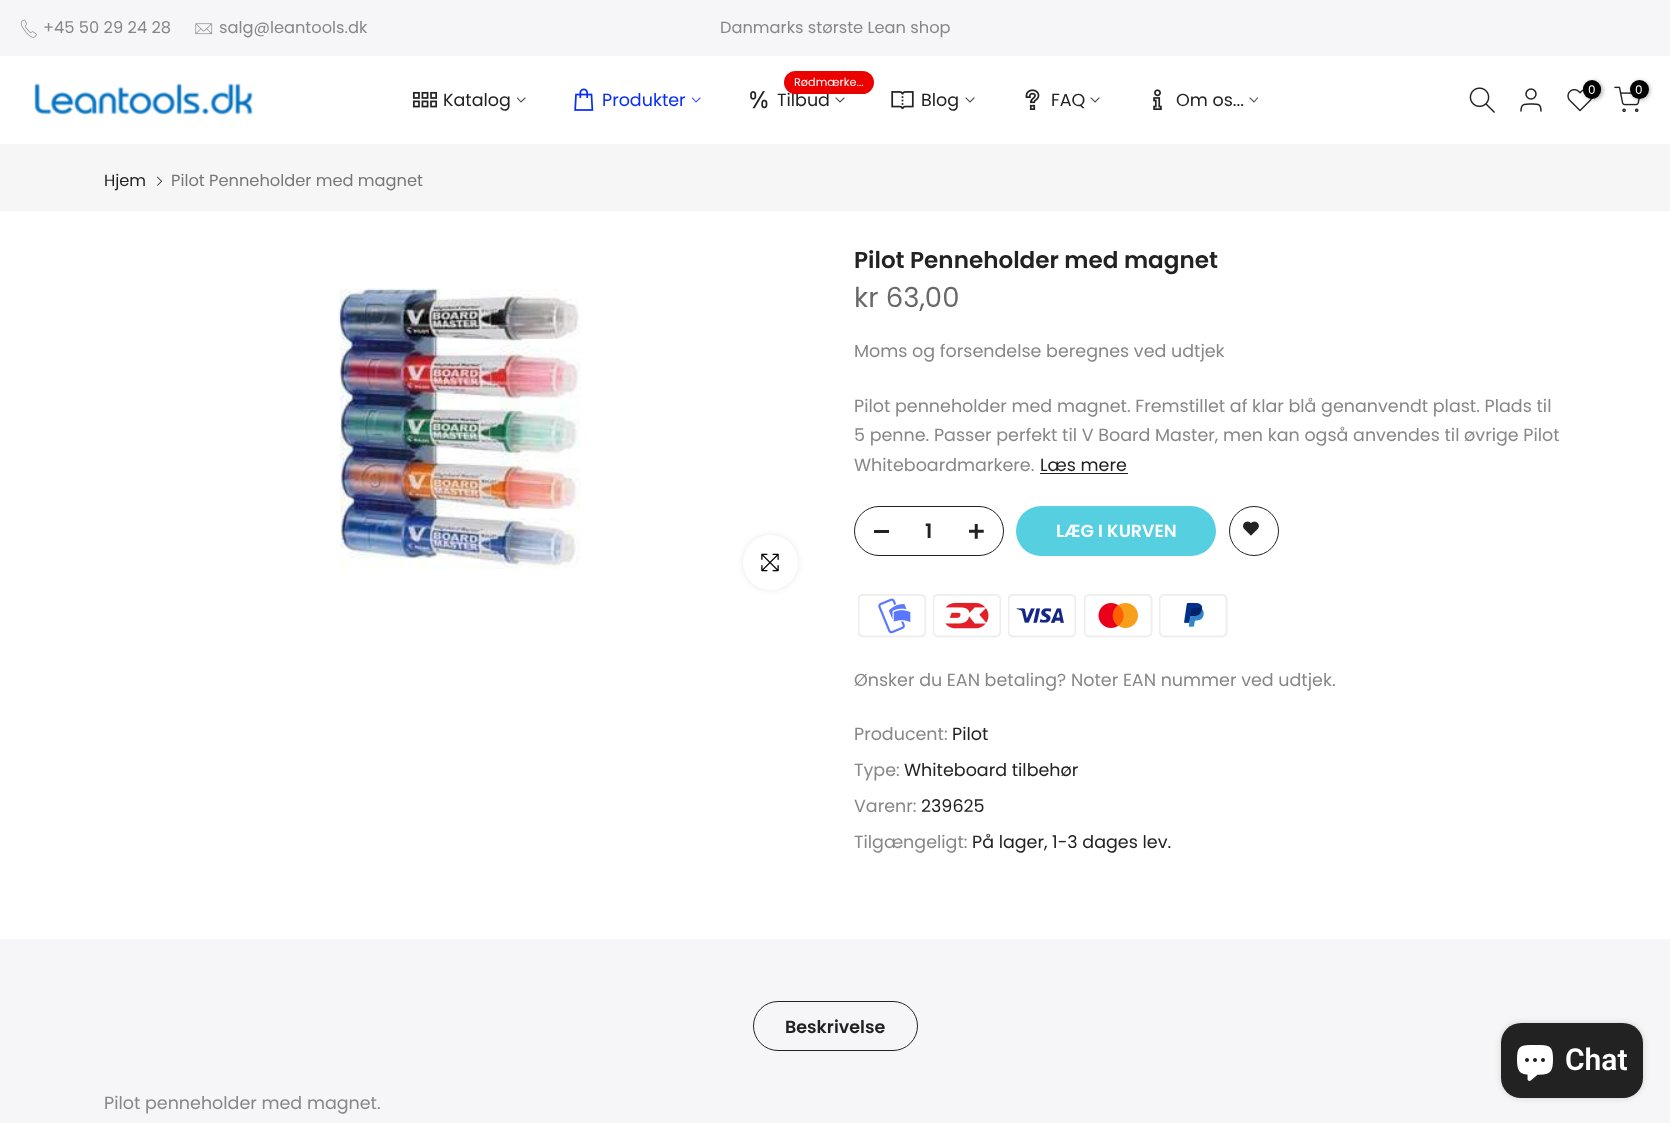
<svg xmlns="http://www.w3.org/2000/svg" xmlns:xlink="http://www.w3.org/1999/xlink" width="1670" height="1123" viewBox="0 0 1670 1123">
<style>
.cls-1{font:16.25px Poppins;fill:#878787}
.cls-2{font:17.5px Poppins;fill:#222222}
.cls-3{font:17.5px Poppins;fill:#092df9}
.cls-4{font:11.25px Poppins;fill:#ffffff}
.cls-5{font:12px Poppins;fill:#ffffff}
.cls-6{font:16.25px Poppins;fill:#222222}
.cls-7{font:16.25px Poppins;fill:#777777}
.cls-8{font:600 23.1px Poppins;fill:#222222}
.cls-9{font:27.5px Poppins;fill:#696969}
.cls-10{font:17.5px Poppins;fill:#878787}
.cls-11{font:600 20px Poppins;fill:#222222}
.cls-12{font:600 17.5px Poppins;fill:#ffffff}
.cls-13{font:600 17.5px Poppins;fill:#222222}
.cls-14{font:600 30px Roboto;fill:#ffffff}
</style>
<rect width="100%" height="100%" fill="#ffffff"/>
<rect fill="#f6f6f8" x="0" y="0" width="1670" height="56"/>
<image xlink:href="image0.png" x="20" y="19" width="17" height="19"/>
<image xlink:href="image1.png" x="195" y="23" width="18" height="12"/>
<image xlink:href="image2.png" x="34" y="83" width="219" height="32"/>
<image xlink:href="image3.png" x="412" y="91" width="26" height="17"/>
<path fill="none" stroke="#4e4e4e" stroke-width="1.1" stroke-linecap="square" d="M525 98L521 102L517.5 98"/>
<image xlink:href="image4.png" x="574" y="88" width="20" height="23"/>
<path fill="none" stroke="#3a57fa" stroke-width="1.1" stroke-linecap="square" d="M700 98L696 102L692.5 98"/>
<image xlink:href="image5.png" x="750" y="91" width="18" height="18"/>
<path fill="none" stroke="#4e4e4e" stroke-width="1.1" stroke-linecap="square" d="M844 98L840 102L836 98"/>
<image xlink:href="image6.png" x="891" y="91" width="23" height="19"/>
<path fill="none" stroke="#4e4e4e" stroke-width="1.1" stroke-linecap="square" d="M974 98L970 102L966 98"/>
<image xlink:href="image7.png" x="1025" y="89" width="15" height="21"/>
<path fill="none" stroke="#4e4e4e" stroke-width="1.1" stroke-linecap="square" d="M1099 98L1095 102L1091 98"/>
<image xlink:href="image8.png" x="1153" y="89" width="9" height="21"/>
<path fill="none" stroke="#4e4e4e" stroke-width="1.1" stroke-linecap="square" d="M1257.5 98L1254 102L1250 98"/>
<image xlink:href="image9.png" x="1469" y="87" width="26" height="26"/>
<circle fill="none" stroke="#222222" stroke-width="1.5" cx="1531" cy="94" r="5"/>
<path fill="none" stroke="#222222" stroke-width="1.5" stroke-linecap="round" stroke-linejoin="round" d="M1541 111C1541 103.5 1538 104 1531 104C1524.5 104 1521 103.5 1521 111"/>
<image xlink:href="image10.png" x="1567" y="89" width="26" height="23"/>
<rect fill="#000000" fill-opacity="0.3" filter="blur(2px)" x="1584" y="81" width="19" height="19" rx="9.5"/>
<rect fill="#000000" x="1583" y="80" width="18" height="19" rx="9"/>
<image xlink:href="image11.png" x="1614" y="86" width="26" height="27"/>
<rect fill="#000000" fill-opacity="0.3" filter="blur(2px)" x="1631" y="81" width="19" height="19" rx="9.5"/>
<circle fill="#000000" cx="1639.5" cy="89.5" r="9.5"/>
<rect fill="#f6f6f6" x="0" y="144" width="1670" height="67"/>
<image xlink:href="image12.png" x="157" y="176" width="5" height="10"/>
<image xlink:href="image13.png" x="338" y="288" width="243" height="281"/>
<rect fill="#000000" fill-opacity="0.09" filter="blur(3px)" x="743" y="535" width="55" height="55" rx="27.5"/>
<circle fill="#ffffff" cx="770.5" cy="562.5" r="27.5"/>
<image xlink:href="image14.png" x="761" y="553" width="18" height="19"/>
<rect fill="#222222" x="1040" y="473" width="88" height="1"/>
<rect fill="none" stroke="#222222" x="854.5" y="506.5" width="149" height="49" rx="24.5"/>
<rect fill="#222222" x="874" y="530" width="15" height="3"/>
<image xlink:href="image15.png" x="969" y="524" width="15" height="15"/>
<rect fill="#56cfe1" x="1016" y="506" width="200" height="50" rx="25"/>
<circle fill="none" stroke="#222222" cx="1254" cy="531" r="24.5"/>
<image xlink:href="image16.png" x="1243" y="521" width="16" height="15"/>
<image xlink:href="image17.png" x="858" y="594" width="68" height="44"/>
<image xlink:href="image18.png" x="933" y="594" width="68" height="44"/>
<image xlink:href="image19.png" x="1008" y="594" width="68" height="44"/>
<image xlink:href="image20.png" x="1084" y="594" width="69" height="44"/>
<image xlink:href="image21.png" x="1159" y="594" width="69" height="44"/>
<rect fill="#f6f6f8" x="0" y="939" width="1670" height="184"/>
<rect fill="none" stroke="#222222" x="753.5" y="1001.5" width="164" height="49" rx="24.5"/>
<rect fill="#000000" fill-opacity="0.15" filter="blur(3px)" x="1501" y="1023" width="142" height="75" rx="20"/>
<rect fill="#222222" x="1501" y="1023" width="142" height="75" rx="20"/>
<image xlink:href="image22.png" x="1517" y="1045" width="36" height="36"/>
<text class="cls-1" x="43" y="33">+45 50 29 24 28</text>
<text class="cls-1" x="219" y="33">salg@leantools.dk</text>
<text class="cls-1" x="720" y="33">Danmarks største Lean shop</text>
<text class="cls-2" x="443" y="106">Katalog</text>
<text class="cls-3" x="602" y="106">Produkter</text>
<text class="cls-2" x="777" y="106">Tilbud</text>
<rect fill="#ec0101" x="784" y="71" width="90" height="23" rx="11.5"/>
<text class="cls-4" x="794" y="86">Rødmærke...</text>
<text class="cls-2" x="921" y="106">Blog</text>
<text class="cls-2" x="1051" y="106">FAQ</text>
<text class="cls-2" x="1176" y="106">Om os...</text>
<text class="cls-5" x="1588" y="94">0</text>
<text class="cls-5" x="1635" y="94">0</text>
<text class="cls-6" x="104" y="186">Hjem</text>
<text class="cls-7" x="171" y="186">Pilot Penneholder med magnet</text>
<text class="cls-8" x="854" y="268">Pilot Penneholder med magnet</text>
<text class="cls-9" x="854" y="307">kr 63,00</text>
<text class="cls-10" x="854" y="357">Moms og forsendelse beregnes ved udtjek</text>
<text class="cls-10"><tspan x="854" y="412">Pilot penneholder med magnet. Fremstillet af klar blå genanvendt plast. Plads til</tspan><tspan x="854" y="441">5 penne. Passer perfekt til V Board Master, men kan også anvendes til øvrige Pilot</tspan><tspan x="854" y="471">Whiteboardmarkere.</tspan></text>
<text class="cls-2" x="1040" y="471">Læs mere</text>
<text class="cls-11" x="925" y="538">1</text>
<text class="cls-12" x="1056" y="537">LÆG I KURVEN</text>
<text class="cls-10" x="854" y="686">Ønsker du EAN betaling? Noter EAN nummer ved udtjek.</text>
<text class="cls-10" x="854" y="740">Producent:</text>
<text class="cls-2" x="952" y="740">Pilot</text>
<text class="cls-10" x="854" y="776">Type:</text>
<text class="cls-2" x="904" y="776">Whiteboard tilbehør</text>
<text class="cls-10" x="854" y="812">Varenr:</text>
<text class="cls-2" x="921" y="812">239625</text>
<text class="cls-10" x="854" y="848">Tilgængeligt:</text>
<text class="cls-2" x="972" y="848">På lager, 1-3 dages lev.</text>
<text class="cls-13" x="785" y="1033">Beskrivelse</text>
<text class="cls-10" x="104" y="1109">Pilot penneholder med magnet.</text>
<text class="cls-14" x="1565" y="1070">Chat</text>
</svg>
